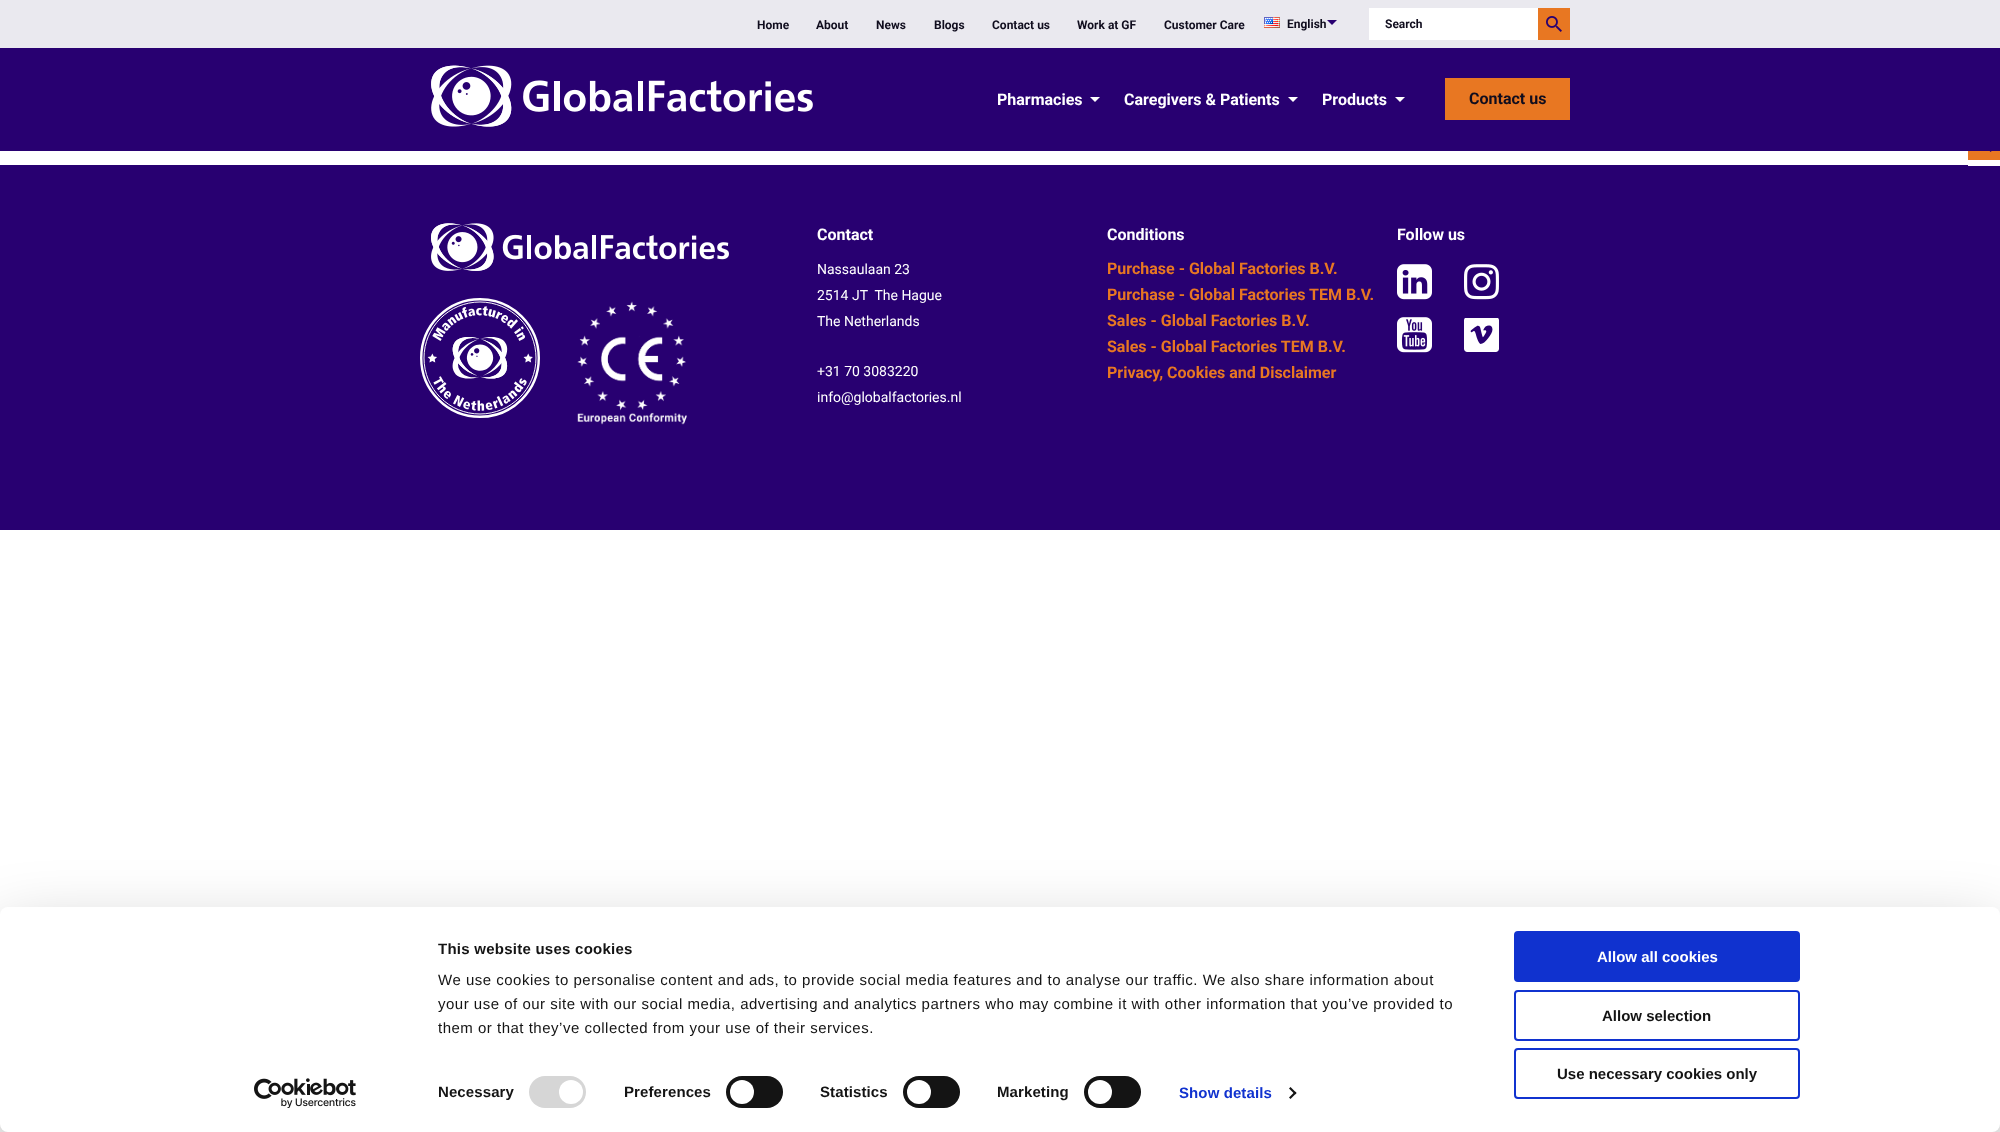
<svg xmlns="http://www.w3.org/2000/svg" xmlns:xlink="http://www.w3.org/1999/xlink" width="2000" height="1132" viewBox="0 0 2000 1132">
<style>
.cls-1{font:bold 12px Roboto;fill:#100d1e}
.cls-2{font:bold 16px Roboto;fill:#ffffff}
.cls-3{font:bold 16px Roboto;fill:#100d1e}
.cls-4{font:14px Roboto;fill:#ffffff}
.cls-5{font:bold 16px Roboto;fill:#e87722}
.cls-6{font:bold 15px Liberation Sans;letter-spacing:0.25px;fill:#141414}
.cls-7{font:15px Liberation Sans;letter-spacing:0.5px;fill:#141414}
.cls-8{font:bold 15px Liberation Sans;letter-spacing:0.1px;fill:#141414}
.cls-9{font:bold 15px Liberation Sans;letter-spacing:0.1px;fill:#1032cf}
.cls-10{font:bold 15px Liberation Sans;fill:#ffffff}
.cls-11{font:bold 15px Liberation Sans;fill:#141414}
</style>
<rect width="100%" height="100%" fill="#ffffff"/>
<rect fill="#eae9ef" x="0" y="0" width="2000" height="48"/>
<image xlink:href="image0.png" x="1264" y="17" width="16" height="11"/>
<path fill="#280071" d="M1327 20H1337L1332 25Z"/>
<rect fill="#ffffff" x="1369" y="8" width="169" height="32"/>
<rect fill="#e87722" x="1538" y="8" width="32" height="32"/>
<image xlink:href="image1.png" x="1546" y="16" width="16" height="16"/>
<rect fill="#280071" x="0" y="48" width="2000" height="103"/>
<image xlink:href="image2.png" x="431" y="65" width="382" height="62"/>
<path fill="#ffffff" d="M1090 97H1100L1095 102Z"/>
<path fill="#ffffff" d="M1288 97H1298L1293 102Z"/>
<path fill="#ffffff" d="M1395 97H1405L1400 102Z"/>
<rect fill="#e87722" x="1445" y="78" width="125" height="42"/>
<rect fill="#e87722" x="1968" y="151" width="32" height="9"/>
<image xlink:href="image3.png" x="1989" y="151" width="3" height="1"/>
<rect fill="#280071" x="0" y="165" width="1968" height="1"/>
<rect fill="#280071" x="0" y="166" width="2000" height="364"/>
<image xlink:href="image4.png" x="431" y="223" width="298" height="48"/>
<image xlink:href="image5.png" x="420" y="298" width="120" height="120"/>
<image xlink:href="image6.png" x="577" y="301" width="110" height="124"/>
<image xlink:href="image7.png" x="1397" y="264" width="35" height="36"/>
<image xlink:href="image8.png" x="1464" y="264" width="35" height="36"/>
<image xlink:href="image9.png" x="1397" y="317" width="35" height="36"/>
<image xlink:href="image10.png" x="1464" y="318" width="35" height="34"/>
<rect fill="#000000" fill-opacity="0.3" filter="blur(35px)" x="0" y="937" width="2000" height="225" rx="8"/>
<rect fill="#ffffff" x="0" y="907" width="2000" height="225" rx="8"/>
<rect fill="#d6d6d6" x="529" y="1076" width="57" height="32" rx="16"/>
<circle fill="#ffffff" cx="571" cy="1092" r="12"/>
<rect fill="#141414" x="726" y="1076" width="57" height="32" rx="16"/>
<circle fill="#ffffff" cx="742" cy="1092" r="12"/>
<rect fill="#141414" x="903" y="1076" width="57" height="32" rx="16"/>
<circle fill="#ffffff" cx="919" cy="1092" r="12"/>
<rect fill="#141414" x="1084" y="1076" width="57" height="32" rx="16"/>
<circle fill="#ffffff" cx="1100" cy="1092" r="12"/>
<path fill="#141414" d="M1290.5 1087L1296.5 1093L1295 1094.5L1289 1088.5Z"/>
<path fill="#141414" d="M1295 1091.5L1296.5 1093L1290.5 1099L1289 1097.5Z"/>
<rect fill="#1032cf" stroke="#1032cf" stroke-width="2" x="1515" y="932" width="284" height="49" rx="3"/>
<rect fill="none" stroke="#1032cf" stroke-width="2" x="1515" y="991" width="284" height="49" rx="3"/>
<rect fill="none" stroke="#1032cf" stroke-width="2" x="1515" y="1049" width="284" height="49" rx="3"/>
<image xlink:href="image11.png" x="254" y="1078" width="102" height="30"/>
<text class="cls-1" x="757" y="29">Home</text>
<text class="cls-1" x="816" y="29">About</text>
<text class="cls-1" x="876" y="29">News</text>
<text class="cls-1" x="934" y="29">Blogs</text>
<text class="cls-1" x="992" y="29">Contact us</text>
<text class="cls-1" x="1077" y="29">Work at GF</text>
<text class="cls-1" x="1164" y="29">Customer Care</text>
<text class="cls-1" x="1287" y="28">English</text>
<text class="cls-1" x="1385" y="28">Search</text>
<text class="cls-2" x="997" y="105">Pharmacies</text>
<text class="cls-2" x="1124" y="105">Caregivers &amp; Patients</text>
<text class="cls-2" x="1322" y="105">Products</text>
<text class="cls-3" x="1469" y="104">Contact us</text>
<text class="cls-2" x="817" y="240">Contact</text>
<text class="cls-4" xml:space="preserve"><tspan x="817" y="274">Nassaulaan 23</tspan><tspan x="817" y="300">2514 JT  The Hague</tspan><tspan x="817" y="326">The Netherlands</tspan></text>
<text class="cls-4"><tspan x="817" y="376">+31 70 3083220</tspan><tspan x="817" y="402">info@globalfactories.nl</tspan></text>
<text class="cls-2" x="1107" y="240">Conditions</text>
<text class="cls-5"><tspan x="1107" y="274">Purchase - Global Factories B.V.</tspan><tspan x="1107" y="300">Purchase - Global Factories TEM B.V.</tspan><tspan x="1107" y="326">Sales - Global Factories B.V.</tspan><tspan x="1107" y="352">Sales - Global Factories TEM B.V.</tspan><tspan x="1107" y="378">Privacy, Cookies and Disclaimer</tspan></text>
<text class="cls-2" x="1397" y="240">Follow us</text>
<text class="cls-6" x="438" y="954">This website uses cookies</text>
<text class="cls-7"><tspan x="438" y="985">We use cookies to personalise content and ads, to provide social media features and to analyse our traffic. We also share information about</tspan><tspan x="438" y="1009">your use of our site with our social media, advertising and analytics partners who may combine it with other information that you’ve provided to</tspan><tspan x="438" y="1033">them or that they’ve collected from your use of their services.</tspan></text>
<text class="cls-8" x="438" y="1097">Necessary</text>
<text class="cls-8" x="624" y="1097">Preferences</text>
<text class="cls-8" x="820" y="1097">Statistics</text>
<text class="cls-8" x="997" y="1097">Marketing</text>
<text class="cls-9" x="1179" y="1098">Show details</text>
<text class="cls-10" x="1597" y="962">Allow all cookies</text>
<text class="cls-11" x="1602" y="1021">Allow selection</text>
<text class="cls-11" x="1557" y="1079">Use necessary cookies only</text>
</svg>
